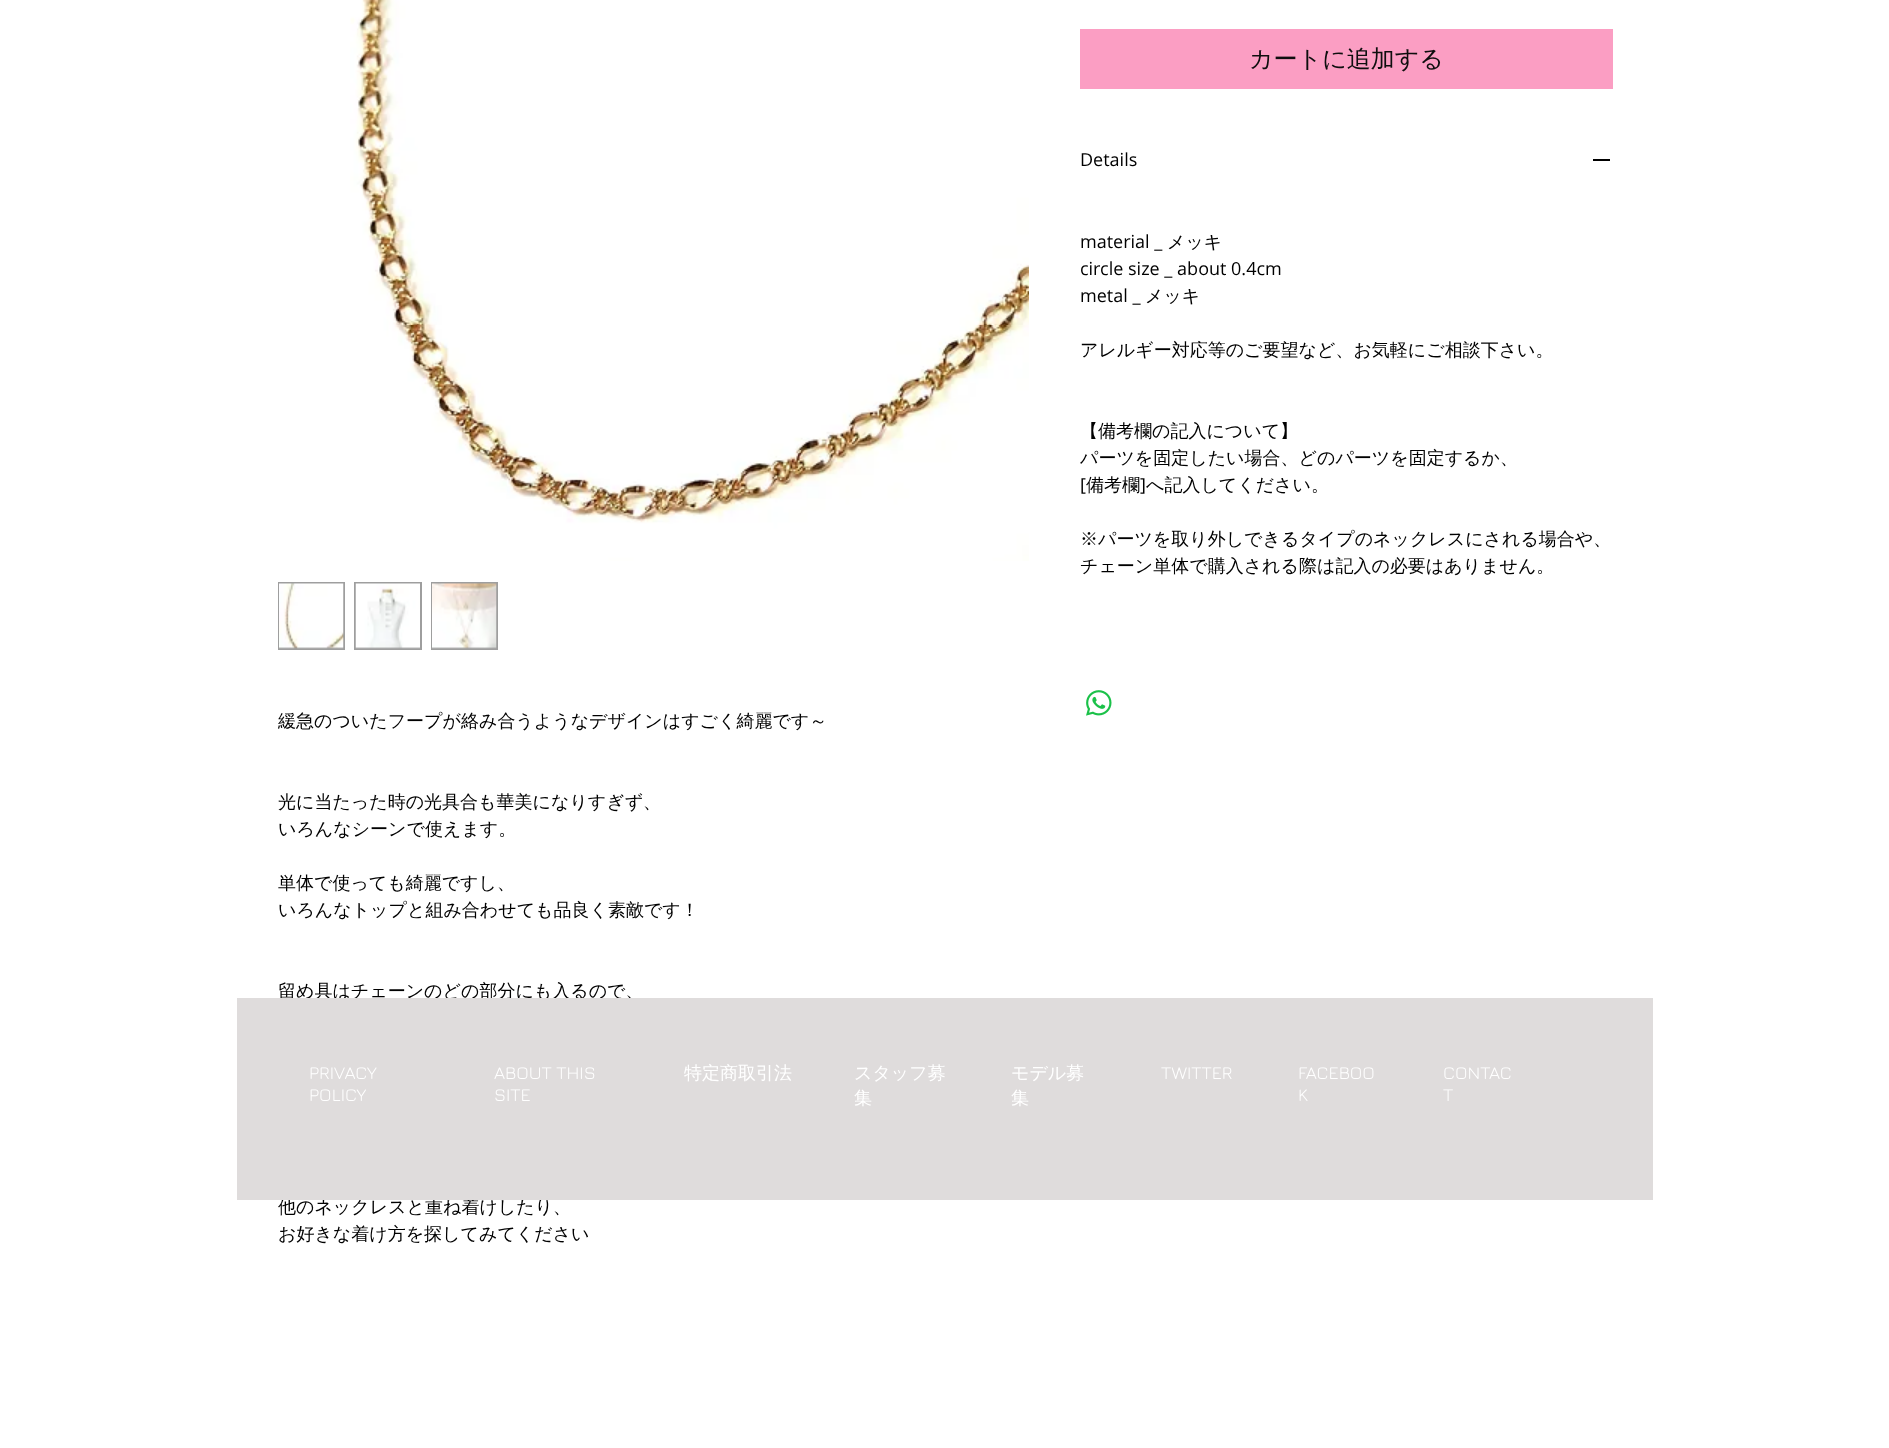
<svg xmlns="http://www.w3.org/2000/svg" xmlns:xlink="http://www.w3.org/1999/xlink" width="1889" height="1448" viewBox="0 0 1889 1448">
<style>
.cls-1{font:500 24px WenQuanYi Zen Hei;fill:#0e0e0e}
.cls-2{font:18px Open Sans;fill:#000000}
.cls-3{font:500 18px WenQuanYi Zen Hei;fill:#000000}
.cls-4{font:18px Jura;fill:#ffffff}
.cls-5{font:500 18px WenQuanYi Zen Hei;fill:#ffffff}
</style>
<defs>
<clipPath id="clip1"><rect x="278" y="680" width="570" height="594"/></clipPath>
</defs>
<rect width="100%" height="100%" fill="#ffffff"/>
<rect fill="#fb9ec3" x="1080" y="29" width="533" height="60"/>
<rect fill="#000000" x="1593" y="159" width="17" height="2"/>
<image xlink:href="image0.png" x="1086" y="690" width="26" height="26"/>
<image xlink:href="image1.png" x="350" y="0" width="679" height="561"/>
<rect fill="#9e9e9e" x="278" y="582" width="67" height="68"/>
<image xlink:href="image2.png" x="279" y="583" width="65" height="66"/>
<rect fill="#9e9e9e" x="354" y="582" width="68" height="68"/>
<image xlink:href="image3.png" x="355" y="583" width="65" height="66"/>
<rect fill="#9e9e9e" x="431" y="582" width="67" height="68"/>
<image xlink:href="image4.png" x="432" y="583" width="65" height="66"/>
<text class="cls-1" x="1249" y="67">カートに追加する</text>
<text class="cls-2" x="1080" y="166">Details</text>
<text class="cls-2" x="1080" y="248">material _</text>
<text class="cls-3" x="1167" y="248">メッキ</text>
<text class="cls-2"><tspan x="1080" y="275">circle size _ about 0.4cm</tspan><tspan x="1080" y="302">metal _</tspan></text>
<text class="cls-3" x="1145" y="302">メッキ</text>
<text class="cls-3" x="1080" y="356">アレルギー対応等のご要望など、お気軽にご相談下さい。</text>
<text class="cls-3"><tspan x="1080" y="437">【備考欄の記入について】</tspan><tspan x="1080" y="464">パーツを固定したい場合、どのパーツを固定するか、</tspan></text>
<text class="cls-2" x="1080" y="491">[</text>
<text class="cls-3" x="1086" y="491">備考欄</text>
<text class="cls-2" x="1140" y="491">]</text>
<text class="cls-3" x="1146" y="491">へ記入してください。</text>
<text class="cls-3"><tspan x="1080" y="545">※パーツを取り外しできるタイプのネックレスにされる場合や、</tspan><tspan x="1080" y="572">チェーン単体で購入される際は記入の必要はありません。</tspan></text>
<g clip-path="url(#clip1)">
<text class="cls-3" x="278" y="727">緩急のついたフープが絡み合うようなデザインはすごく綺麗です～</text>
</g>
<text class="cls-3"><tspan x="278" y="808">光に当たった時の光具合も華美になりすぎず、</tspan><tspan x="278" y="835">いろんなシーンで使えます。</tspan></text>
<text class="cls-3"><tspan x="278" y="889">単体で使っても綺麗ですし、</tspan><tspan x="278" y="916">いろんなトップと組み合わせても品良く素敵です！</tspan></text>
<text class="cls-3" x="278" y="997">留め具はチェーンのどの部分にも入るので、</text>
<text class="cls-3"><tspan x="278" y="1213">他のネックレスと重ね着けしたり、</tspan><tspan x="278" y="1240">お好きな着け方を探してみてください</tspan></text>
<rect fill="#dfdcdc" x="237" y="998" width="1416" height="202"/>
<text class="cls-4"><tspan x="309" y="1079">PRIVACY</tspan><tspan x="309" y="1101">POLICY</tspan></text>
<text class="cls-4"><tspan x="494" y="1079">ABOUT THIS</tspan><tspan x="494" y="1101">SITE</tspan></text>
<text class="cls-5" x="684" y="1079">特定商取引法</text>
<text class="cls-5"><tspan x="854" y="1079">スタッフ募</tspan><tspan x="854" y="1104">集</tspan></text>
<text class="cls-5"><tspan x="1011" y="1079">モデル募</tspan><tspan x="1011" y="1104">集</tspan></text>
<text class="cls-4" x="1161" y="1079">TWITTER</text>
<text class="cls-4"><tspan x="1298" y="1079">FACEBOO</tspan><tspan x="1298" y="1101">K</tspan></text>
<text class="cls-4"><tspan x="1443" y="1079">CONTAC</tspan><tspan x="1443" y="1101">T</tspan></text>
</svg>
